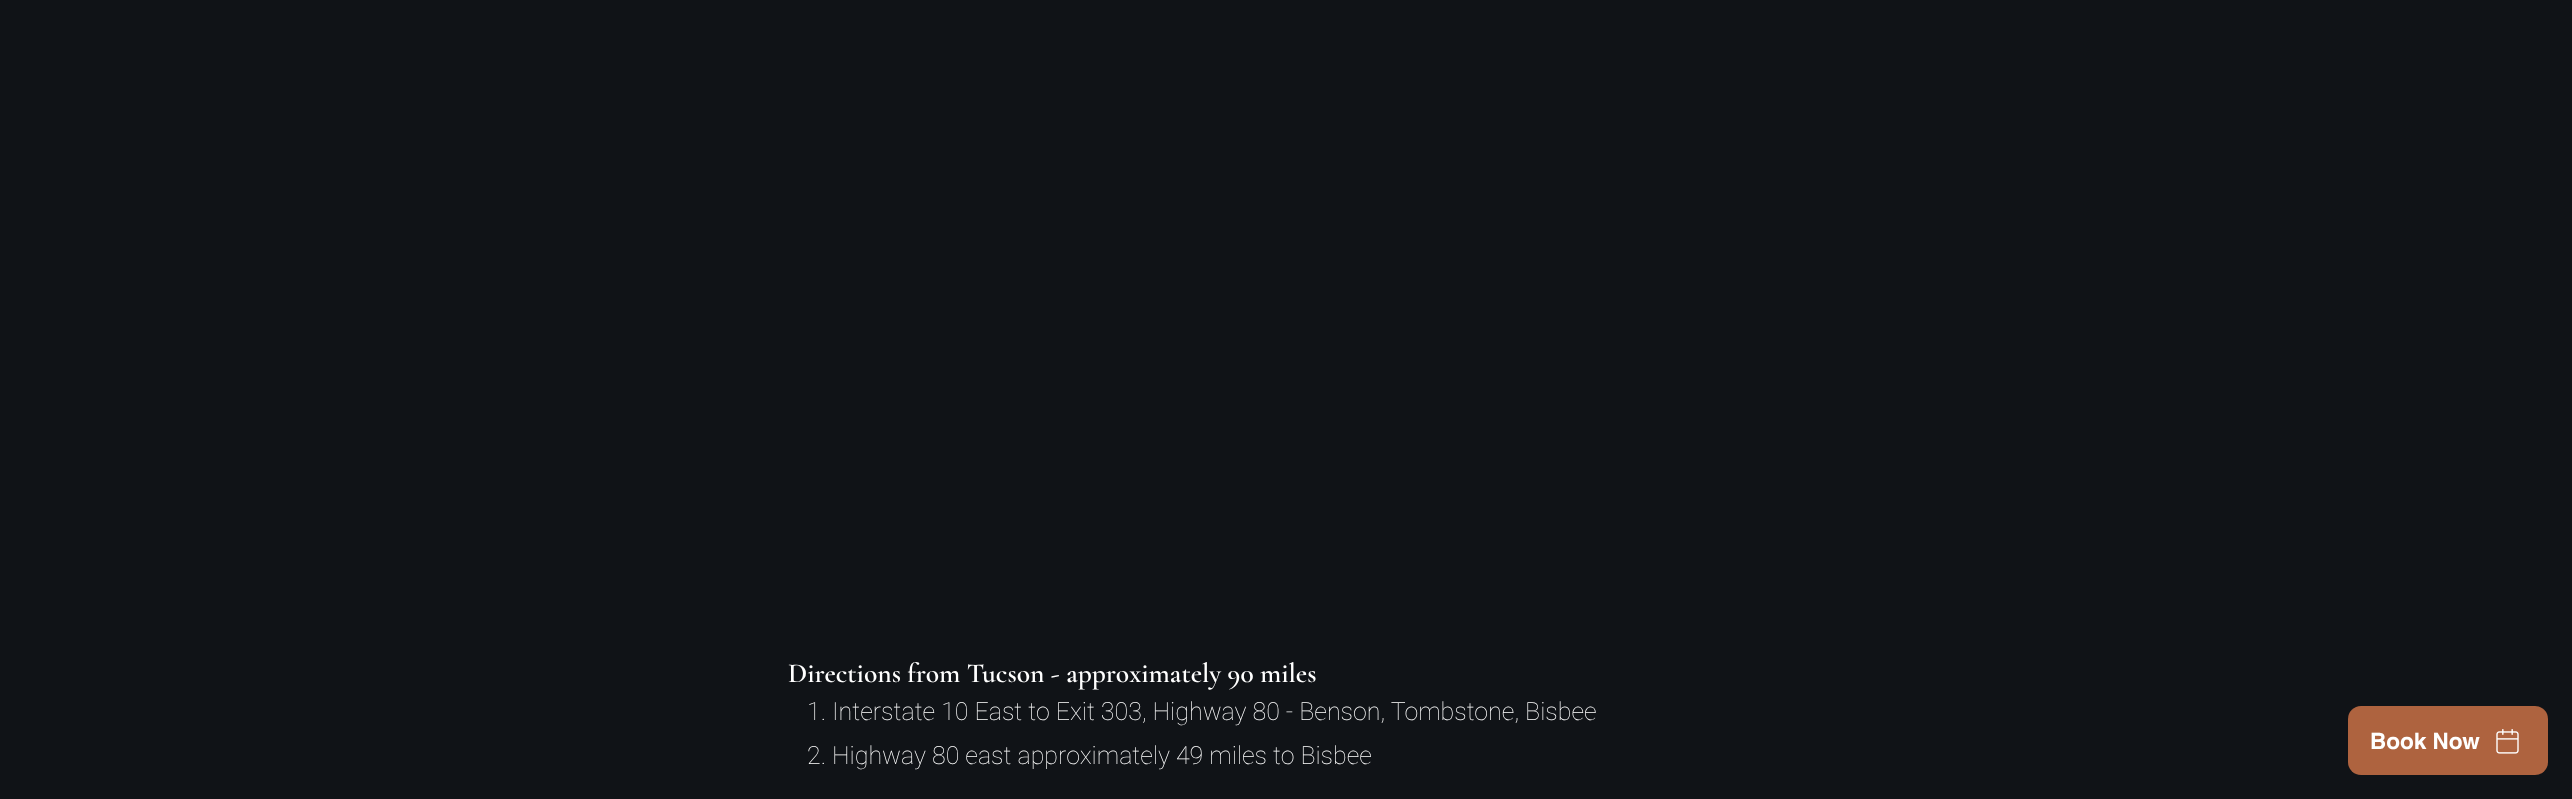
<svg xmlns="http://www.w3.org/2000/svg" xmlns:xlink="http://www.w3.org/1999/xlink" width="2572" height="799" viewBox="0 0 2572 799">
<style>
.cls-1{font:600 27.5px Cormorant Garamond;fill:#ffffff}
.cls-2{font:100 25px Roboto;fill:#ffffff}
.cls-3{font:bold 22.5px helvetica;fill:#ffffff}
</style>
<rect width="100%" height="100%" fill="#101317"/>
<rect fill="#ae633f" x="2348" y="706" width="200" height="69" rx="13"/>
<image xlink:href="image0.png" x="2496" y="729" width="23" height="25"/>
<text class="cls-1" x="788" y="682">Directions from Tucson - approximately 90 miles</text>
<text class="cls-2"><tspan x="807" y="720">1. Interstate 10 East to Exit 303, Highway 80 - Benson, Tombstone, Bisbee</tspan><tspan x="807" y="764">2. Highway 80 east approximately 49 miles to Bisbee</tspan></text>
<text class="cls-3" x="2370" y="749">Book Now</text>
</svg>
